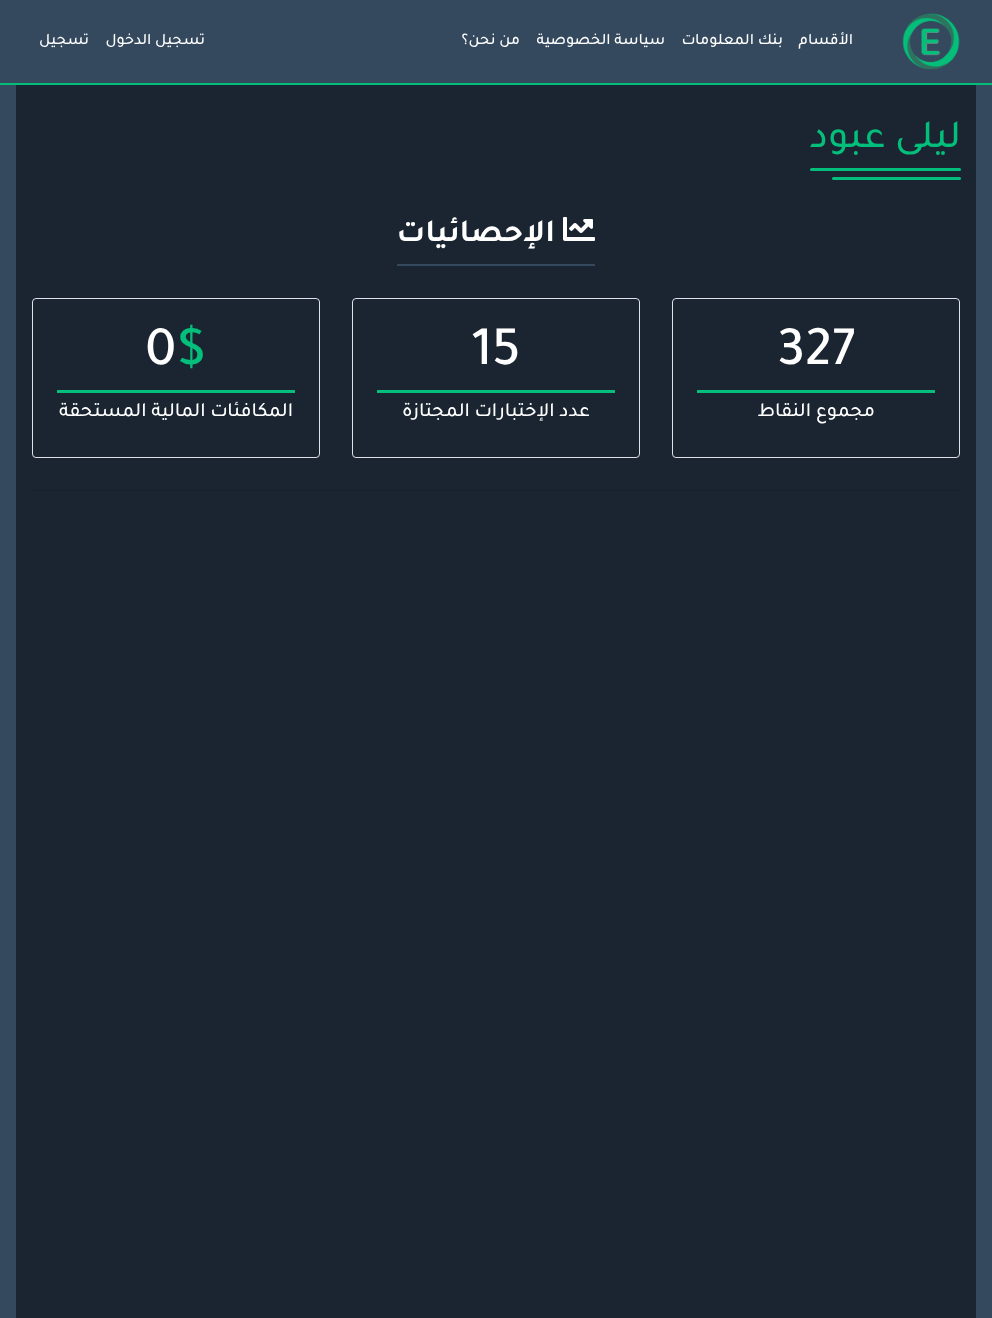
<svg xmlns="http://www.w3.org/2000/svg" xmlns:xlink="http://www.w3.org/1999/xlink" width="992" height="1318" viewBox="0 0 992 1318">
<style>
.cls-1{font:500 16px Tajawal;direction:rtl;fill:#ffffff}
.cls-2{font:500 40px Tajawal;direction:rtl;fill:#04bf7b}
.cls-3{font:bold 32px Tajawal;direction:rtl;fill:#ffffff}
.cls-4{font:500 56px Tajawal;fill:#ffffff}
.cls-5{font:500 20px Tajawal;direction:rtl;fill:#ffffff}
.cls-6{font:500 56px Tajawal;fill:#04bf7b}
</style>
<rect width="100%" height="100%" fill="#34495e"/>
<rect fill="#04bf7b" x="0" y="83" width="992" height="2"/>
<image xlink:href="image0.png" x="902" y="13" width="58" height="57"/>
<rect fill="#1a2531" x="16" y="85" width="960" height="1233"/>
<rect fill="#04bf7b" x="810" y="168" width="151" height="3" rx="1.5"/>
<rect fill="#04bf7b" x="832" y="177" width="129" height="3" rx="1.5"/>
<rect fill="#34495e" x="397" y="264" width="198" height="2"/>
<image xlink:href="image1.png" x="563" y="217" width="32" height="24"/>
<rect fill="none" stroke="#dee2e6" x="672.5" y="298.5" width="287" height="159" rx="3.5"/>
<rect fill="#04bf7b" x="697" y="390" width="238" height="3"/>
<rect fill="none" stroke="#dee2e6" x="352.5" y="298.5" width="287" height="159" rx="3.5"/>
<rect fill="#04bf7b" x="377" y="390" width="238" height="3"/>
<rect fill="none" stroke="#dee2e6" x="32.5" y="298.5" width="287" height="159" rx="3.5"/>
<rect fill="#04bf7b" x="57" y="390" width="238" height="3"/>
<rect fill="#17212c" x="31" y="490" width="930" height="1"/>
<text class="cls-1" x="853" y="44">الأقسام</text>
<text class="cls-1" x="783" y="44">بنك المعلومات</text>
<text class="cls-1" x="665" y="44">سياسة الخصوصية</text>
<text class="cls-1" x="520" y="44">من نحن؟</text>
<text class="cls-1" x="205" y="44">تسجيل الدخول</text>
<text class="cls-1" x="89" y="44">تسجيل</text>
<text class="cls-2" x="961" y="147">ليلى عبود</text>
<text class="cls-3" x="555" y="241">الإحصائيات</text>
<text class="cls-4" x="777" y="364">327</text>
<text class="cls-5" x="875" y="416">مجموع النقاط</text>
<text class="cls-4" x="471" y="364">15</text>
<text class="cls-5" x="590" y="416">عدد الإختبارات المجتازة</text>
<text class="cls-6" x="176" y="364">$</text>
<text class="cls-4" x="145" y="364">0</text>
<text class="cls-5" x="293" y="416">المكافئات المالية المستحقة</text>
</svg>
